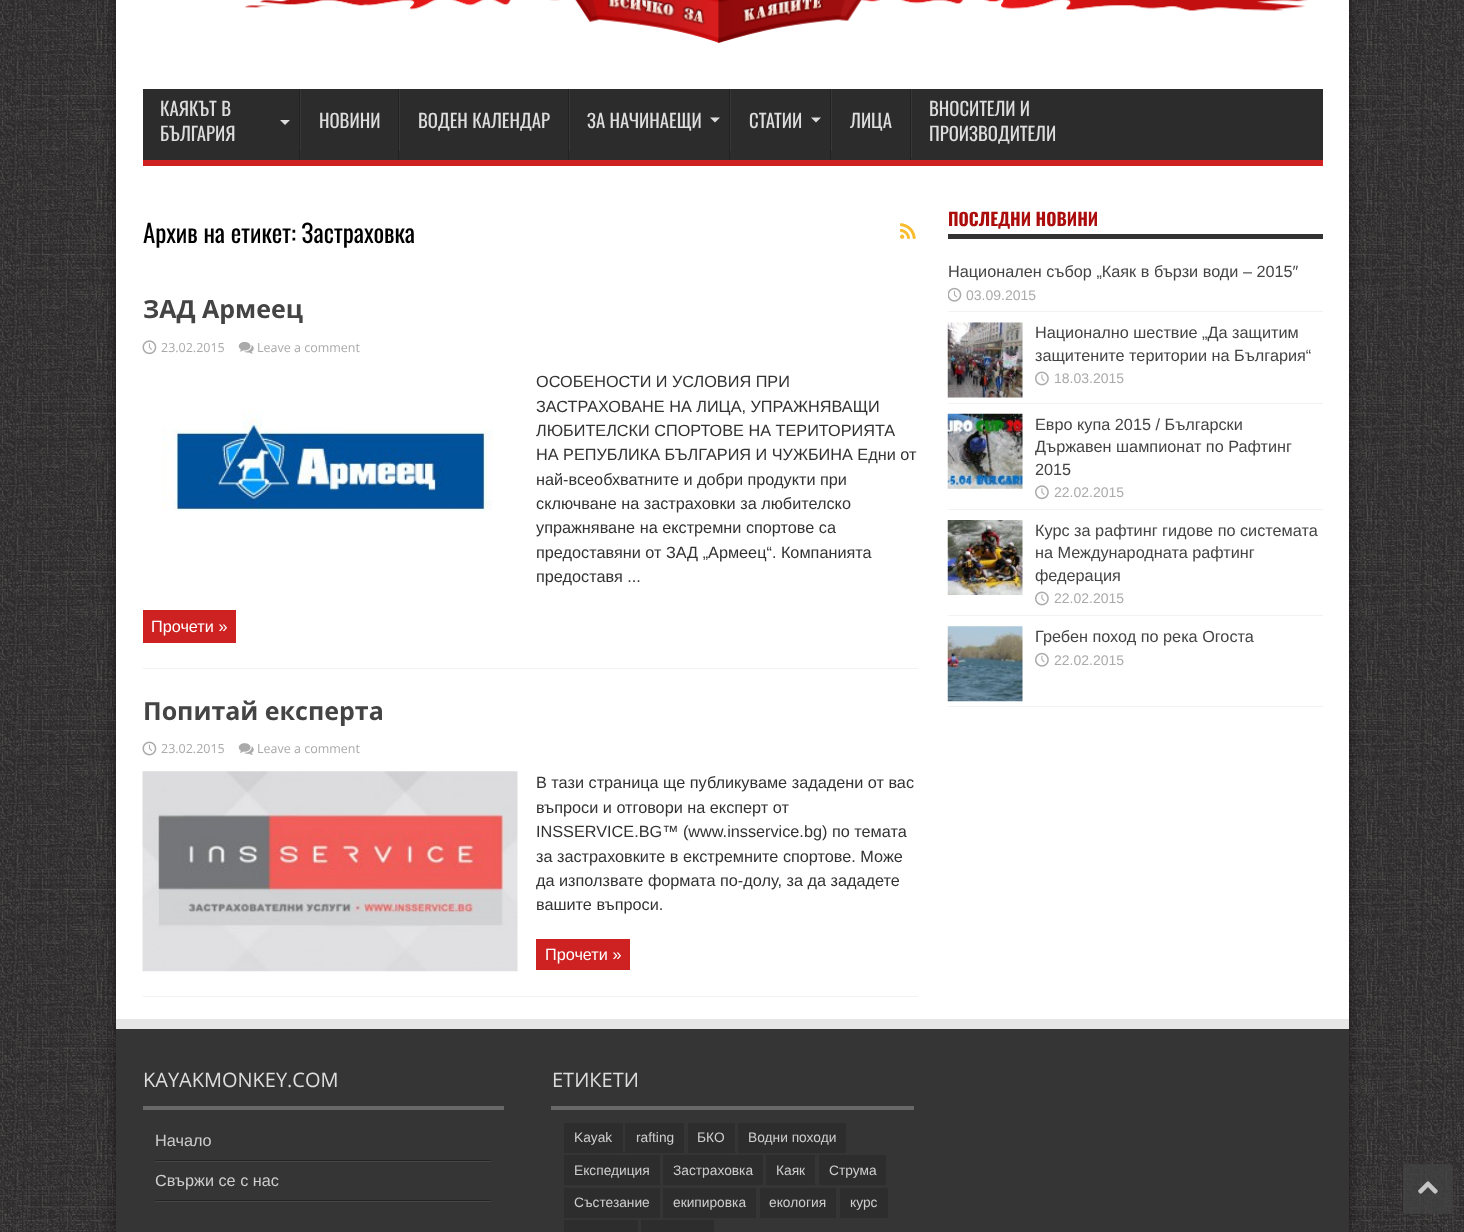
<svg xmlns="http://www.w3.org/2000/svg" xmlns:xlink="http://www.w3.org/1999/xlink" width="1464" height="1232" viewBox="0 0 1464 1232">
<style>
.cls-1{font:18.75px Oswald;fill:#dddddd}
.cls-2{font:25px Oswald;fill:#000000}
.cls-3{font:bold 25px Open Sans;fill:#444444}
.cls-4{font:12.5px Open Sans;fill:#aaaaaa}
.cls-5{font:16.25px Liberation Sans;fill:#333333}
.cls-6{font:16.25px Liberation Sans;fill:#ffffff}
.cls-7{font:bold 17.5px Oswald;fill:#ab0c0c}
.cls-8{font:16.25px Liberation Sans;fill:#444444}
.cls-9{font:14px Liberation Sans;fill:#aaaaaa}
.cls-10{font:20px Open Sans;fill:#dddddd}
.cls-11{font:16.25px Liberation Sans;fill:#cdcdcd}
.cls-12{font:13.75px Liberation Sans;fill:#cdcdcd}
</style>
<rect width="100%" height="100%" fill="#262326"/>
<image xlink:href="image0.png" x="0" y="0" width="1464" height="1232"/>
<rect fill="#000000" fill-opacity="0.5" filter="blur(6px)" x="116" y="-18" width="1233" height="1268"/>
<rect fill="#ffffff" x="116" y="0" width="1233" height="1019"/>
<image xlink:href="image1.png" x="245" y="0" width="1063" height="43"/>
<rect fill="#2c2c2c" x="143" y="89" width="1180" height="71"/>
<rect fill="#cd2122" x="143" y="160" width="1180" height="6"/>
<path fill="#dddddd" d="M280 120H290L285 125Z"/>
<rect fill="#222222" x="299" y="89" width="1" height="71"/>
<rect fill="#383838" x="300" y="89" width="1" height="62"/>
<rect fill="#222222" x="398" y="89" width="1" height="71"/>
<rect fill="#383838" x="399" y="89" width="1" height="62"/>
<rect fill="#222222" x="568" y="89" width="1" height="71"/>
<rect fill="#383838" x="569" y="89" width="1" height="62"/>
<path fill="#dddddd" d="M710 117.5H720L715 122.5Z"/>
<rect fill="#222222" x="729" y="89" width="1" height="71"/>
<rect fill="#383838" x="730" y="89" width="1" height="62"/>
<path fill="#dddddd" d="M811 117.5H821L816 122.5Z"/>
<rect fill="#222222" x="830" y="89" width="1" height="71"/>
<rect fill="#383838" x="831" y="89" width="1" height="62"/>
<rect fill="#222222" x="910" y="89" width="1" height="71"/>
<rect fill="#383838" x="911" y="89" width="1" height="69"/>
<image xlink:href="image2.png" x="900" y="223" width="16" height="16"/>
<rect fill="#f2f2f2" x="143" y="668" width="775" height="1"/>
<image xlink:href="image3.png" x="142" y="340" width="15" height="15"/>
<image xlink:href="image4.png" x="238" y="341" width="16" height="13"/>
<rect fill="#cd2122" x="143" y="610" width="93" height="33"/>
<image xlink:href="image5.png" x="162" y="409" width="331" height="102"/>
<rect fill="#f2f2f2" x="143" y="996" width="775" height="1"/>
<image xlink:href="image6.png" x="142" y="741" width="15" height="15"/>
<image xlink:href="image7.png" x="238" y="743" width="16" height="12"/>
<image xlink:href="image8.png" x="142" y="771" width="376" height="201"/>
<rect fill="#cd2122" x="536" y="939" width="94" height="31"/>
<rect fill="#333333" x="948" y="234" width="375" height="5"/>
<rect fill="#f2f2f2" x="948" y="311" width="375" height="1"/>
<image xlink:href="image9.png" x="948" y="287" width="14" height="15"/>
<rect fill="#f2f2f2" x="948" y="403" width="375" height="1"/>
<image xlink:href="image10.png" x="947" y="322" width="76" height="76"/>
<image xlink:href="image11.png" x="1035" y="371" width="14" height="15"/>
<rect fill="#f2f2f2" x="948" y="509" width="375" height="1"/>
<image xlink:href="image12.png" x="947" y="413" width="76" height="76"/>
<image xlink:href="image13.png" x="1035" y="485" width="14" height="15"/>
<rect fill="#f2f2f2" x="948" y="615" width="375" height="1"/>
<image xlink:href="image14.png" x="947" y="520" width="76" height="75"/>
<image xlink:href="image11.png" x="1035" y="591" width="14" height="15"/>
<rect fill="#f2f2f2" x="948" y="706" width="375" height="1"/>
<image xlink:href="image15.png" x="947" y="626" width="76" height="76"/>
<image xlink:href="image16.png" x="1035" y="652" width="14" height="15"/>
<path fill="#e6e6e6" d="M116 1019V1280V1029H1349V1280V1019Z"/>
<rect fill="#353535" x="116" y="1029" width="1233" height="203"/>
<rect fill="#686868" x="143" y="1106" width="361" height="4"/>
<rect fill="#464646" x="155" y="1201" width="336" height="1"/>
<rect fill="#252525" x="155" y="1160" width="336" height="1"/>
<rect fill="#464646" x="155" y="1161" width="336" height="1"/>
<rect fill="#252525" x="155" y="1200" width="336" height="1"/>
<rect fill="#686868" x="551" y="1106" width="363" height="4"/>
<rect fill="#2d2d2d" x="564" y="1123" width="59" height="30"/>
<rect fill="#2d2d2d" x="625" y="1123" width="59" height="30"/>
<rect fill="#2d2d2d" x="688" y="1123" width="47" height="30"/>
<rect fill="#2d2d2d" x="738" y="1123" width="108" height="30"/>
<rect fill="#2d2d2d" x="564" y="1155" width="96" height="30"/>
<rect fill="#2d2d2d" x="663" y="1155" width="100" height="30"/>
<rect fill="#2d2d2d" x="766" y="1155" width="49" height="30"/>
<rect fill="#2d2d2d" x="819" y="1155" width="67" height="30"/>
<rect fill="#2d2d2d" x="564" y="1188" width="96" height="30"/>
<rect fill="#2d2d2d" x="663" y="1188" width="93" height="30"/>
<rect fill="#2d2d2d" x="760" y="1188" width="76" height="30"/>
<rect fill="#2d2d2d" x="840" y="1188" width="48" height="30"/>
<rect fill="#2d2d2d" x="564" y="1220" width="74" height="12"/>
<rect fill="#2d2d2d" x="641" y="1220" width="73" height="12"/>
<rect fill="#444444" fill-opacity="0.7" x="1403" y="1164" width="50" height="50" rx="2.5"/>
<image xlink:href="image17.png" x="1418" y="1181" width="20" height="13"/>
<text class="cls-1"><tspan x="160" y="116">КАЯКЪТ В</tspan><tspan x="160" y="141">БЪЛГАРИЯ</tspan></text>
<text class="cls-1" x="319" y="128">НОВИНИ</text>
<text class="cls-1" x="418" y="128">ВОДЕН КАЛЕНДАР</text>
<text class="cls-1" x="587" y="128">ЗА НАЧИНАЕЩИ</text>
<text class="cls-1" x="749" y="128">СТАТИИ</text>
<text class="cls-1" x="850" y="128">ЛИЦА</text>
<text class="cls-1"><tspan x="929" y="116">ВНОСИТЕЛИ И</tspan><tspan x="929" y="141">ПРОИЗВОДИТЕЛИ</tspan></text>
<text class="cls-2" x="143" y="243">Архив на етикет: Застраховка</text>
<text class="cls-3" x="143" y="318">ЗАД Армеец</text>
<text class="cls-4" x="161" y="352">23.02.2015</text>
<text class="cls-4" x="257" y="352">Leave a comment</text>
<text class="cls-5"><tspan x="536" y="387">ОСОБЕНОСТИ И УСЛОВИЯ ПРИ</tspan><tspan x="536" y="412">ЗАСТРАХОВАНЕ НА ЛИЦА, УПРАЖНЯВАЩИ</tspan><tspan x="536" y="436">ЛЮБИТЕЛСКИ СПОРТОВЕ НА ТЕРИТОРИЯТА</tspan><tspan x="536" y="460">НА РЕПУБЛИКА БЪЛГАРИЯ И ЧУЖБИНА Едни от</tspan><tspan x="536" y="485">най-всеобхватните и добри продукти при</tspan><tspan x="536" y="509">сключване на застраховки за любителско</tspan><tspan x="536" y="533">упражняване на екстремни спортове са</tspan><tspan x="536" y="558">предоставяни от ЗАД „Армеец“. Компанията</tspan><tspan x="536" y="582">предоставя ...</tspan></text>
<text class="cls-6" x="151" y="632">Прочети »</text>
<text class="cls-3" x="143" y="720">Попитай експерта</text>
<text class="cls-4" x="161" y="753">23.02.2015</text>
<text class="cls-4" x="257" y="753">Leave a comment</text>
<text class="cls-5"><tspan x="536" y="788">В тази страница ще публикуваме зададени от вас</tspan><tspan x="536" y="813">въпроси и отговори на експерт от</tspan><tspan x="536" y="837">INSSERVICE.BG™ (www.insservice.bg) по темата</tspan><tspan x="536" y="862">за застраховките в екстремните спортове. Може</tspan><tspan x="536" y="886">да използвате формата по-долу, за да зададете</tspan><tspan x="536" y="910">вашите въпроси.</tspan></text>
<text class="cls-6" x="545" y="960">Прочети »</text>
<text class="cls-7" x="948" y="226">ПОСЛЕДНИ НОВИНИ</text>
<text class="cls-8" x="948" y="277">Национален събор „Каяк в бързи води – 2015″</text>
<text class="cls-9" x="966" y="300">03.09.2015</text>
<text class="cls-8"><tspan x="1035" y="338">Национално шествие „Да защитим</tspan><tspan x="1035" y="361">защитените територии на България“</tspan></text>
<text class="cls-9" x="1054" y="383">18.03.2015</text>
<text class="cls-8"><tspan x="1035" y="430">Евро купа 2015 / Български</tspan><tspan x="1035" y="452">Държавен шампионат по Рафтинг</tspan><tspan x="1035" y="475">2015</tspan></text>
<text class="cls-9" x="1054" y="497">22.02.2015</text>
<text class="cls-8"><tspan x="1035" y="536">Курс за рафтинг гидове по системата</tspan><tspan x="1035" y="558">на Международната рафтинг</tspan><tspan x="1035" y="581">федерация</tspan></text>
<text class="cls-9" x="1054" y="603">22.02.2015</text>
<text class="cls-8" x="1035" y="642">Гребен поход по река Огоста</text>
<text class="cls-9" x="1054" y="665">22.02.2015</text>
<text class="cls-10" x="143" y="1087">KAYAKMONKEY.COM</text>
<text class="cls-11" x="155" y="1146">Начало</text>
<text class="cls-11" x="155" y="1186">Свържи се с нас</text>
<text class="cls-10" x="552" y="1087">ЕТИКЕТИ</text>
<text class="cls-12" x="574" y="1142">Kayak</text>
<text class="cls-12" x="636" y="1142">rafting</text>
<text class="cls-12" x="697" y="1142">БКО</text>
<text class="cls-12" x="748" y="1142">Водни походи</text>
<text class="cls-12" x="574" y="1175">Експедиция</text>
<text class="cls-12" x="673" y="1175">Застраховка</text>
<text class="cls-12" x="776" y="1175">Каяк</text>
<text class="cls-12" x="829" y="1175">Струма</text>
<text class="cls-12" x="574" y="1207">Състезание</text>
<text class="cls-12" x="673" y="1207">екипировка</text>
<text class="cls-12" x="769" y="1207">екология</text>
<text class="cls-12" x="850" y="1207">курс</text>
</svg>
